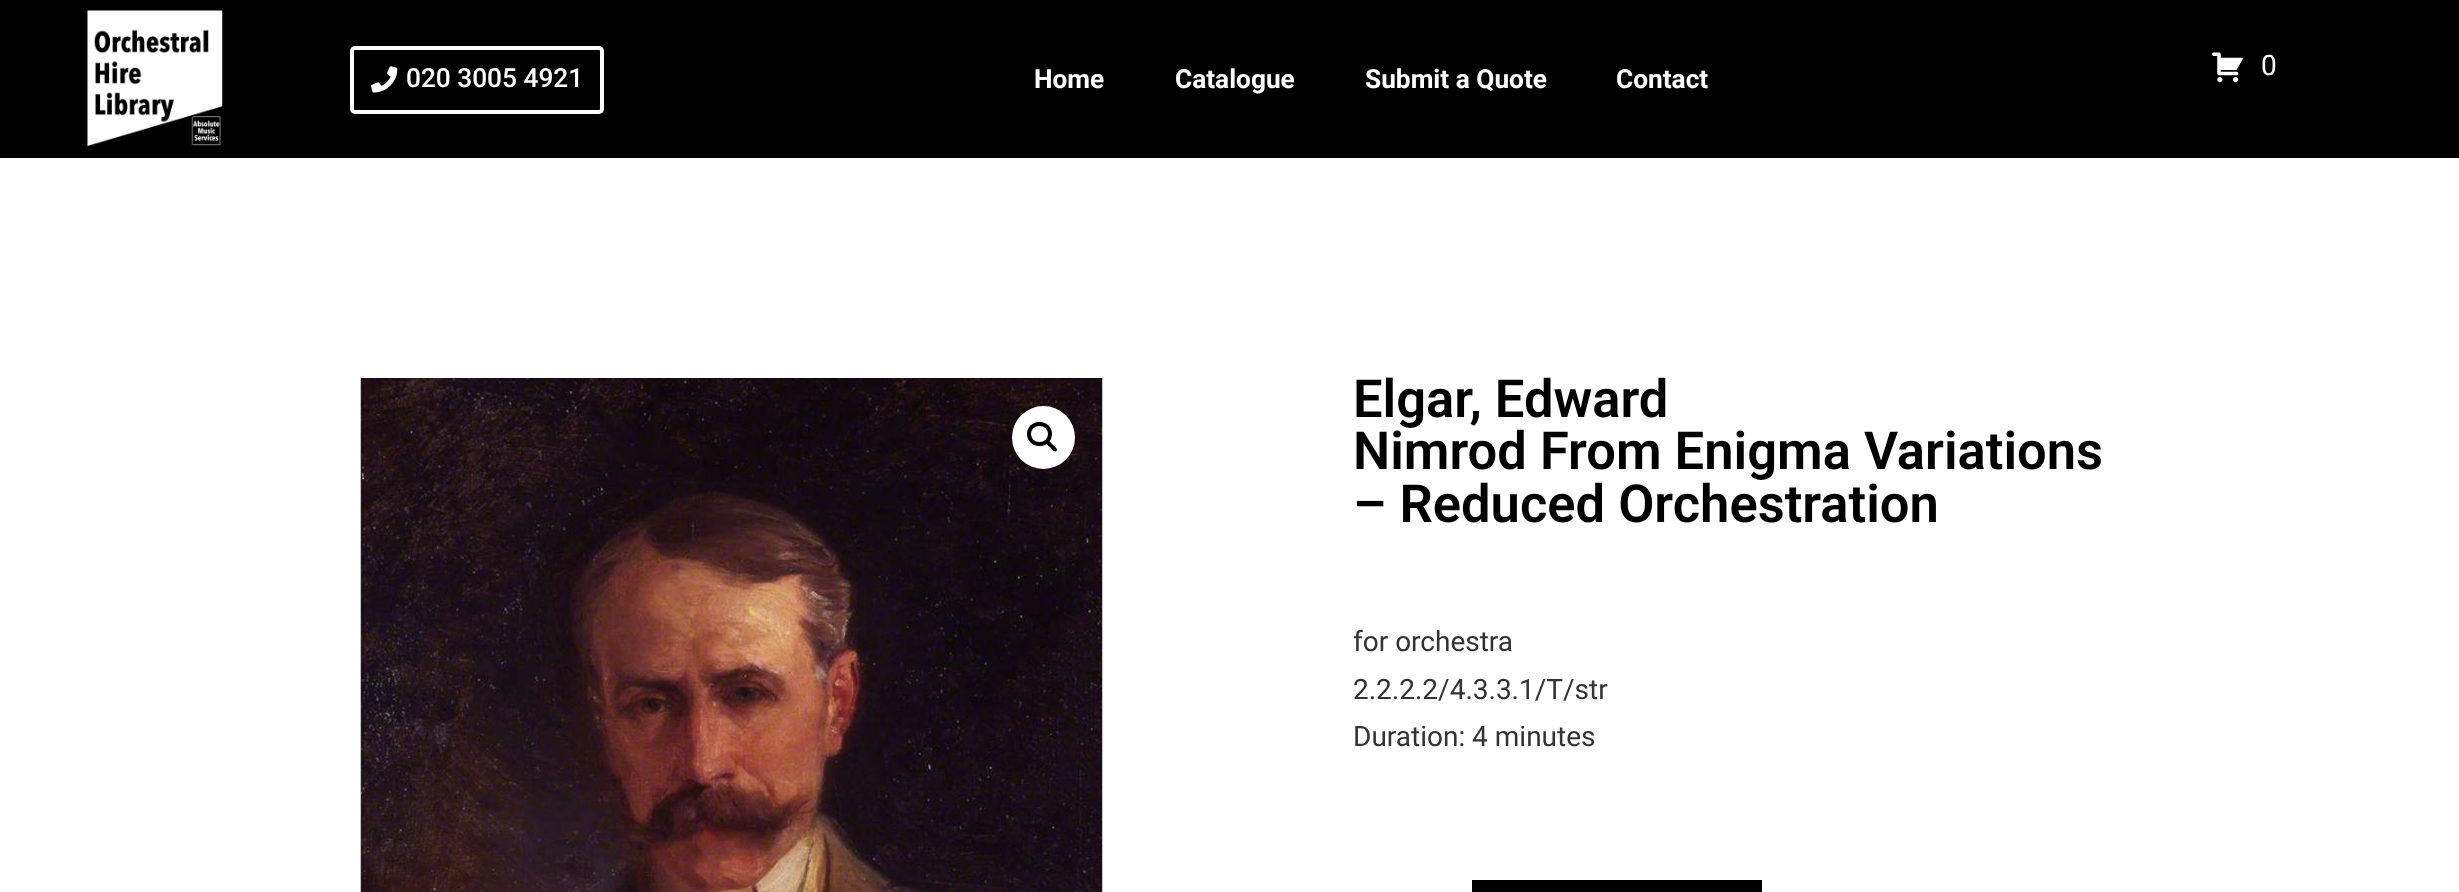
<svg xmlns="http://www.w3.org/2000/svg" xmlns:xlink="http://www.w3.org/1999/xlink" width="2459" height="892" viewBox="0 0 2459 892">
<style>
.cls-1{font:28px Roboto;fill:#ffffff}
.cls-2{font:500 26.25px Roboto;fill:#ffffff}
.cls-3{font:bold 26.25px Roboto;fill:#ffffff}
.cls-4{font:600 52.5px Roboto;fill:#000000}
.cls-5{font:28px Roboto;fill:#333333}
</style>
<rect width="100%" height="100%" fill="#ffffff"/>
<rect fill="#000000" x="0" y="0" width="2459" height="158"/>
<image xlink:href="image0.png" x="87" y="10" width="136" height="137"/>
<image xlink:href="image1.png" x="2212" y="52" width="32" height="31"/>
<rect fill="none" stroke="#ffffff" stroke-width="4" x="352" y="48" width="250" height="64" rx="3"/>
<image xlink:href="image2.png" x="371" y="66" width="27" height="27"/>
<image xlink:href="image3.png" x="360" y="378" width="743" height="514"/>
<circle fill="#ffffff" cx="1043.5" cy="437.5" r="31.5"/>
<rect fill="none" stroke="#000000" stroke-width="4" x="1029" y="424" width="21" height="20" rx="10"/>
<path fill="#000000" d="M1047 441.5C1049 439.5 1052 444 1053 445C1054 446 1058.5 449 1056.5 451C1054.5 453 1051.5 448.5 1050.5 447.5C1049.5 446.5 1045 443.5 1047 441.5Z"/>
<rect fill="#000000" x="1472" y="880" width="290" height="12"/>
<text class="cls-1" x="2261" y="75">0</text>
<text class="cls-2" x="406" y="87">020 3005 4921</text>
<text class="cls-3" x="1034" y="88">Home</text>
<text class="cls-3" x="1175" y="88">Catalogue</text>
<text class="cls-3" x="1365" y="88">Submit a Quote</text>
<text class="cls-3" x="1616" y="88">Contact</text>
<text class="cls-4"><tspan x="1353" y="417">Elgar, Edward</tspan><tspan x="1353" y="469">Nimrod From Enigma Variations</tspan><tspan x="1353" y="522">– Reduced Orchestration</tspan></text>
<text class="cls-5"><tspan x="1353" y="651">for orchestra</tspan><tspan x="1353" y="699">2.2.2.2/4.3.3.1/T/str</tspan><tspan x="1353" y="746">Duration: 4 minutes</tspan></text>
</svg>
